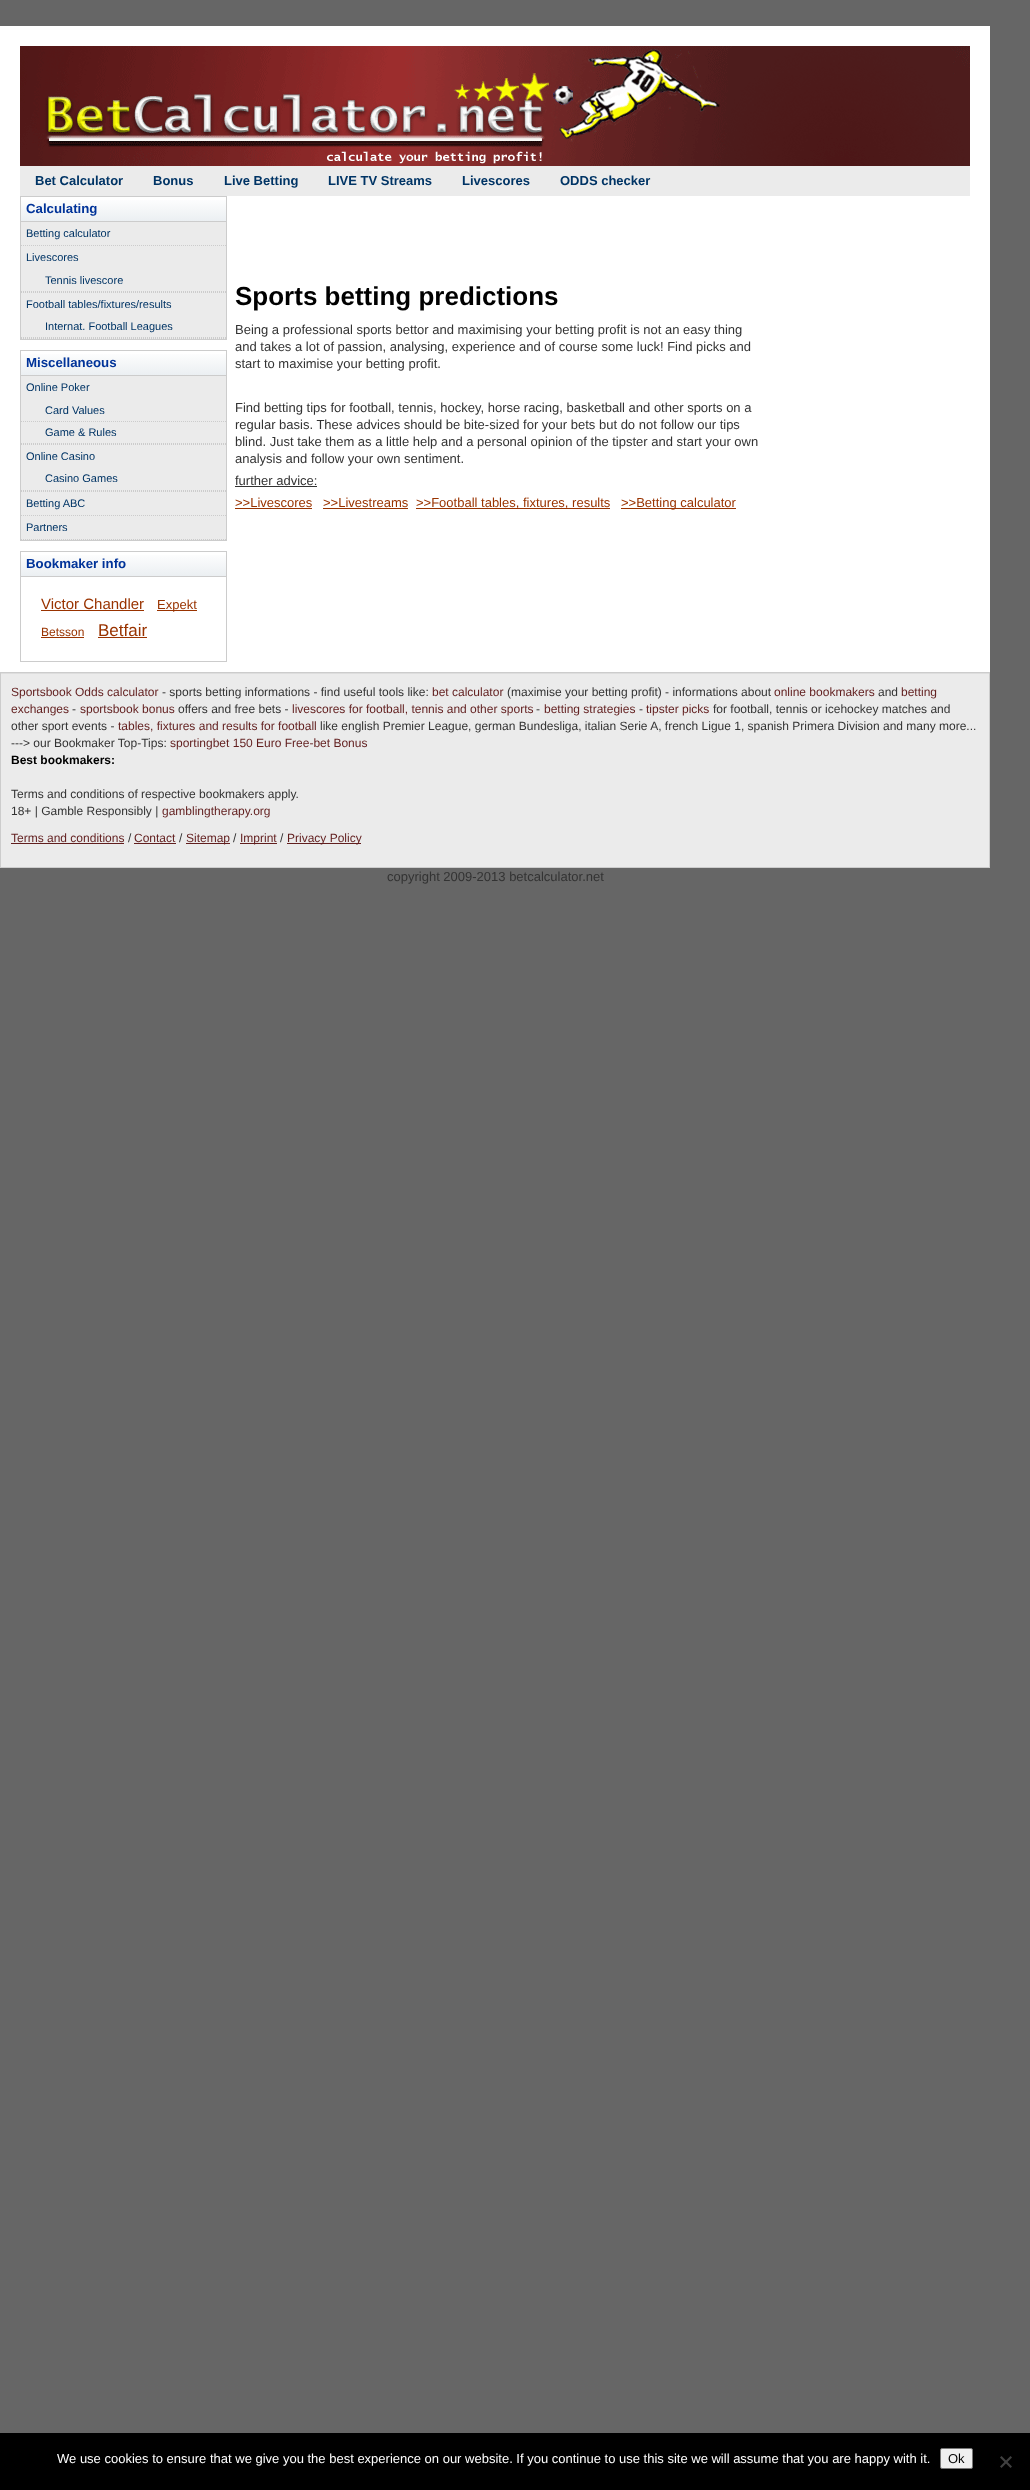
<svg xmlns="http://www.w3.org/2000/svg" xmlns:xlink="http://www.w3.org/1999/xlink" width="1030" height="2490" viewBox="0 0 1030 2490">
<style>
.cls-1{font:bold 13px Liberation Sans;fill:#003465}
.cls-2{font:bold 13.25px Liberation Sans;fill:#003399}
.cls-3{font:11px Liberation Sans;fill:#003465}
.cls-4{font:15px Liberation Sans;fill:#993300}
.cls-5{font:13px Liberation Sans;fill:#993300}
.cls-6{font:12px Liberation Sans;fill:#993300}
.cls-7{font:17px Liberation Sans;fill:#993300}
.cls-8{font:bold 26px Liberation Sans;fill:#000000}
.cls-9{font:13px Liberation Sans;fill:#333333}
.cls-10{font:12px Liberation Sans;fill:#611e1e}
.cls-11{font:12px Liberation Sans;fill:#333333}
.cls-12{font:bold 12px Liberation Sans;fill:#000000}
.cls-13{font:13px Liberation Sans;fill:#ffffff}
.cls-14{font:13px Liberation Sans;fill:#000000}
</style>
<defs>
<linearGradient id="g1" gradientUnits="userSpaceOnUse" x1="124" y1="197" x2="124" y2="221"><stop offset="0" stop-color="#ffffff"/><stop offset="1" stop-color="#ebeff2"/></linearGradient>
<linearGradient id="g2" gradientUnits="userSpaceOnUse" x1="124" y1="351" x2="124" y2="375"><stop offset="0" stop-color="#ffffff"/><stop offset="1" stop-color="#ebeff2"/></linearGradient>
<linearGradient id="g3" gradientUnits="userSpaceOnUse" x1="124" y1="552" x2="124" y2="576"><stop offset="0" stop-color="#ffffff"/><stop offset="1" stop-color="#ebeff2"/></linearGradient>
</defs>
<rect width="100%" height="100%" fill="#666666"/>
<rect fill="#ffffff" x="0" y="26" width="990" height="646"/>
<image xlink:href="image0.png" x="20" y="46" width="950" height="120"/>
<rect fill="#ebebeb" x="20" y="166" width="950" height="30"/>
<rect fill="#ebebeb" x="21" y="222" width="205" height="117"/>
<rect fill="none" stroke="#cccccc" x="20.5" y="196.5" width="206" height="143"/>
<rect fill="url(#g1)" x="21" y="200" width="205" height="21"/>
<rect fill="#cccccc" x="21" y="221" width="205" height="1"/>
<path fill="none" stroke="#cccccc" stroke-dasharray="1 1" d="M21 245.5H226"/>
<path fill="none" stroke="#cccccc" stroke-dasharray="1 1" d="M21 292.5H226"/>
<path fill="none" stroke="#cccccc" stroke-dasharray="1 1" d="M21 291.5H226"/>
<path fill="none" stroke="#cccccc" stroke-dasharray="1 1" d="M21 338.5H226"/>
<path fill="none" stroke="#cccccc" stroke-dasharray="1 1" d="M21 337.5H226"/>
<rect fill="#ebebeb" x="21" y="376" width="205" height="164"/>
<rect fill="none" stroke="#cccccc" x="20.5" y="350.5" width="206" height="190"/>
<rect fill="url(#g2)" x="21" y="354" width="205" height="21"/>
<rect fill="#cccccc" x="21" y="375" width="205" height="1"/>
<path fill="none" stroke="#cccccc" stroke-dasharray="1 1" d="M21 444.5H226"/>
<path fill="none" stroke="#cccccc" stroke-dasharray="1 1" d="M21 421.5H226"/>
<path fill="none" stroke="#cccccc" stroke-dasharray="1 1" d="M21 443.5H226"/>
<path fill="none" stroke="#cccccc" stroke-dasharray="1 1" d="M21 491.5H226"/>
<path fill="none" stroke="#cccccc" stroke-dasharray="1 1" d="M21 490.5H226"/>
<path fill="none" stroke="#cccccc" stroke-dasharray="1 1" d="M21 515.5H226"/>
<path fill="none" stroke="#cccccc" stroke-dasharray="1 1" d="M21 539.5H226"/>
<rect fill="none" stroke="#cccccc" x="20.5" y="551.5" width="206" height="110"/>
<rect fill="url(#g3)" x="21" y="555" width="205" height="21"/>
<rect fill="#cccccc" x="21" y="576" width="205" height="1"/>
<rect fill="#993300" x="41" y="610" width="103" height="1"/>
<rect fill="#993300" x="157" y="610" width="40" height="1"/>
<rect fill="#993300" x="41" y="637" width="43" height="1"/>
<rect fill="#993300" x="98" y="637" width="49" height="1"/>
<rect fill="#333333" x="235" y="486" width="82" height="1"/>
<rect fill="#993300" x="235" y="508" width="77" height="1"/>
<rect fill="#993300" x="323" y="508" width="85" height="1"/>
<rect fill="#993300" x="416" y="508" width="194" height="1"/>
<rect fill="#993300" x="621" y="508" width="115" height="1"/>
<rect fill="#ebebeb" x="1" y="674" width="988" height="193"/>
<rect fill="none" stroke="#cccccc" x="0.5" y="672.5" width="989" height="195"/>
<rect fill="#dddddd" x="1" y="673" width="988" height="1"/>
<rect fill="#611e1e" x="11" y="843" width="113" height="1"/>
<rect fill="#611e1e" x="134" y="843" width="42" height="1"/>
<rect fill="#611e1e" x="186" y="843" width="44" height="1"/>
<rect fill="#611e1e" x="240" y="843" width="37" height="1"/>
<rect fill="#611e1e" x="287" y="843" width="74" height="1"/>
<rect fill="#000000" x="0" y="2433" width="1030" height="57"/>
<rect fill="#efefef" stroke="#767676" x="940.5" y="2448.5" width="32" height="20" rx="1.5"/>
<path fill="#404040" d="M1010.5 2456L1012 2457.5L1001.5 2468L1000 2466.5Z"/>
<path fill="#404040" d="M1000 2457.5L1001.5 2456L1012 2466.5L1010.5 2468Z"/>
<text class="cls-1" x="35" y="185">Bet Calculator</text>
<text class="cls-1" x="153" y="185">Bonus</text>
<text class="cls-1" x="224" y="185">Live Betting</text>
<text class="cls-1" x="328" y="185">LIVE TV Streams</text>
<text class="cls-1" x="462" y="185">Livescores</text>
<text class="cls-1" x="560" y="185">ODDS checker</text>
<text class="cls-2" x="26" y="213">Calculating</text>
<text class="cls-3" x="26" y="237">Betting calculator</text>
<text class="cls-3" x="26" y="261">Livescores</text>
<text class="cls-3" x="45" y="284">Tennis livescore</text>
<text class="cls-3" x="26" y="308">Football tables/fixtures/results</text>
<text class="cls-3" x="45" y="330">Internat. Football Leagues</text>
<text class="cls-2" x="26" y="367">Miscellaneous</text>
<text class="cls-3" x="26" y="391">Online Poker</text>
<text class="cls-3" x="45" y="414">Card Values</text>
<text class="cls-3" x="45" y="436">Game &amp; Rules</text>
<text class="cls-3" x="26" y="460">Online Casino</text>
<text class="cls-3" x="45" y="482">Casino Games</text>
<text class="cls-3" x="26" y="507">Betting ABC</text>
<text class="cls-3" x="26" y="531">Partners</text>
<text class="cls-2" x="26" y="568">Bookmaker info</text>
<text class="cls-4" x="41" y="609">Victor Chandler</text>
<text class="cls-5" x="157" y="609">Expekt</text>
<text class="cls-6" x="41" y="636">Betsson</text>
<text class="cls-7" x="98" y="636">Betfair</text>
<text class="cls-8" x="235" y="305">Sports betting predictions</text>
<text class="cls-9"><tspan x="235" y="334">Being a professional sports bettor and maximising your betting profit is not an easy thing</tspan><tspan x="235" y="351">and takes a lot of passion, analysing, experience and of course some luck! Find picks and</tspan><tspan x="235" y="368">start to maximise your betting profit.</tspan></text>
<text class="cls-9"><tspan x="235" y="412">Find betting tips for football, tennis, hockey, horse racing, basketball and other sports on a</tspan><tspan x="235" y="429">regular basis. These advices should be bite-sized for your bets but do not follow our tips</tspan><tspan x="235" y="446">blind. Just take them as a little help and a personal opinion of the tipster and start your own</tspan><tspan x="235" y="463">analysis and follow your own sentiment.</tspan><tspan x="235" y="485">further advice:</tspan></text>
<text class="cls-5" x="235" y="507">&gt;&gt;Livescores</text>
<text class="cls-5" x="323" y="507">&gt;&gt;Livestreams</text>
<text class="cls-5" x="416" y="507">&gt;&gt;Football tables, fixtures, results</text>
<text class="cls-5" x="621" y="507">&gt;&gt;Betting calculator</text>
<text class="cls-10" x="11" y="696">Sportsbook Odds calculator</text>
<text class="cls-11" x="162" y="696">- sports betting informations - find useful tools like:</text>
<text class="cls-10" x="432" y="696">bet calculator</text>
<text class="cls-11" x="507" y="696">(maximise your betting profit) - informations about</text>
<text class="cls-10" x="774" y="696">online bookmakers</text>
<text class="cls-11" x="878" y="696">and</text>
<text class="cls-10" x="901" y="696">betting</text>
<text class="cls-10" x="11" y="713">exchanges</text>
<text class="cls-11" x="72" y="713">-</text>
<text class="cls-10" x="80" y="713">sportsbook bonus</text>
<text class="cls-11" x="178" y="713">offers and free bets -</text>
<text class="cls-10" x="292" y="713">livescores for football, tennis and other sports</text>
<text class="cls-11" x="536" y="713">-</text>
<text class="cls-10" x="544" y="713">betting strategies</text>
<text class="cls-11" x="639" y="713">-</text>
<text class="cls-10" x="646" y="713">tipster picks</text>
<text class="cls-11" x="713" y="713">for football, tennis or icehockey matches and</text>
<text class="cls-11" x="11" y="730">other sport events -</text>
<text class="cls-10" x="118" y="730">tables, fixtures and results for football</text>
<text class="cls-11" x="320" y="730">like english Premier League, german Bundesliga, italian Serie A, french Ligue 1, spanish Primera Division and many more...</text>
<text class="cls-11" x="11" y="747">---&gt; our Bookmaker Top-Tips:</text>
<text class="cls-10" x="170" y="747">sportingbet 150 Euro Free-bet Bonus</text>
<text class="cls-12" x="11" y="764">Best bookmakers:</text>
<text class="cls-11"><tspan x="11" y="798">Terms and conditions of respective bookmakers apply.</tspan><tspan x="11" y="815">18+ | Gamble Responsibly |</tspan></text>
<text class="cls-10" x="162" y="815">gamblingtherapy.org</text>
<text class="cls-10" x="11" y="842">Terms and conditions</text>
<text class="cls-11" x="128" y="842">/</text>
<text class="cls-10" x="134" y="842">Contact</text>
<text class="cls-11" x="179" y="842">/</text>
<text class="cls-10" x="186" y="842">Sitemap</text>
<text class="cls-11" x="233" y="842">/</text>
<text class="cls-10" x="240" y="842">Imprint</text>
<text class="cls-11" x="280" y="842">/</text>
<text class="cls-10" x="287" y="842">Privacy Policy</text>
<text class="cls-9" x="387" y="881">copyright 2009-2013 betcalculator.net</text>
<text class="cls-13" x="57" y="2463">We use cookies to ensure that we give you the best experience on our website. If you continue to use this site we will assume that you are happy with it.</text>
<text class="cls-14" x="948" y="2463">Ok</text>
</svg>
